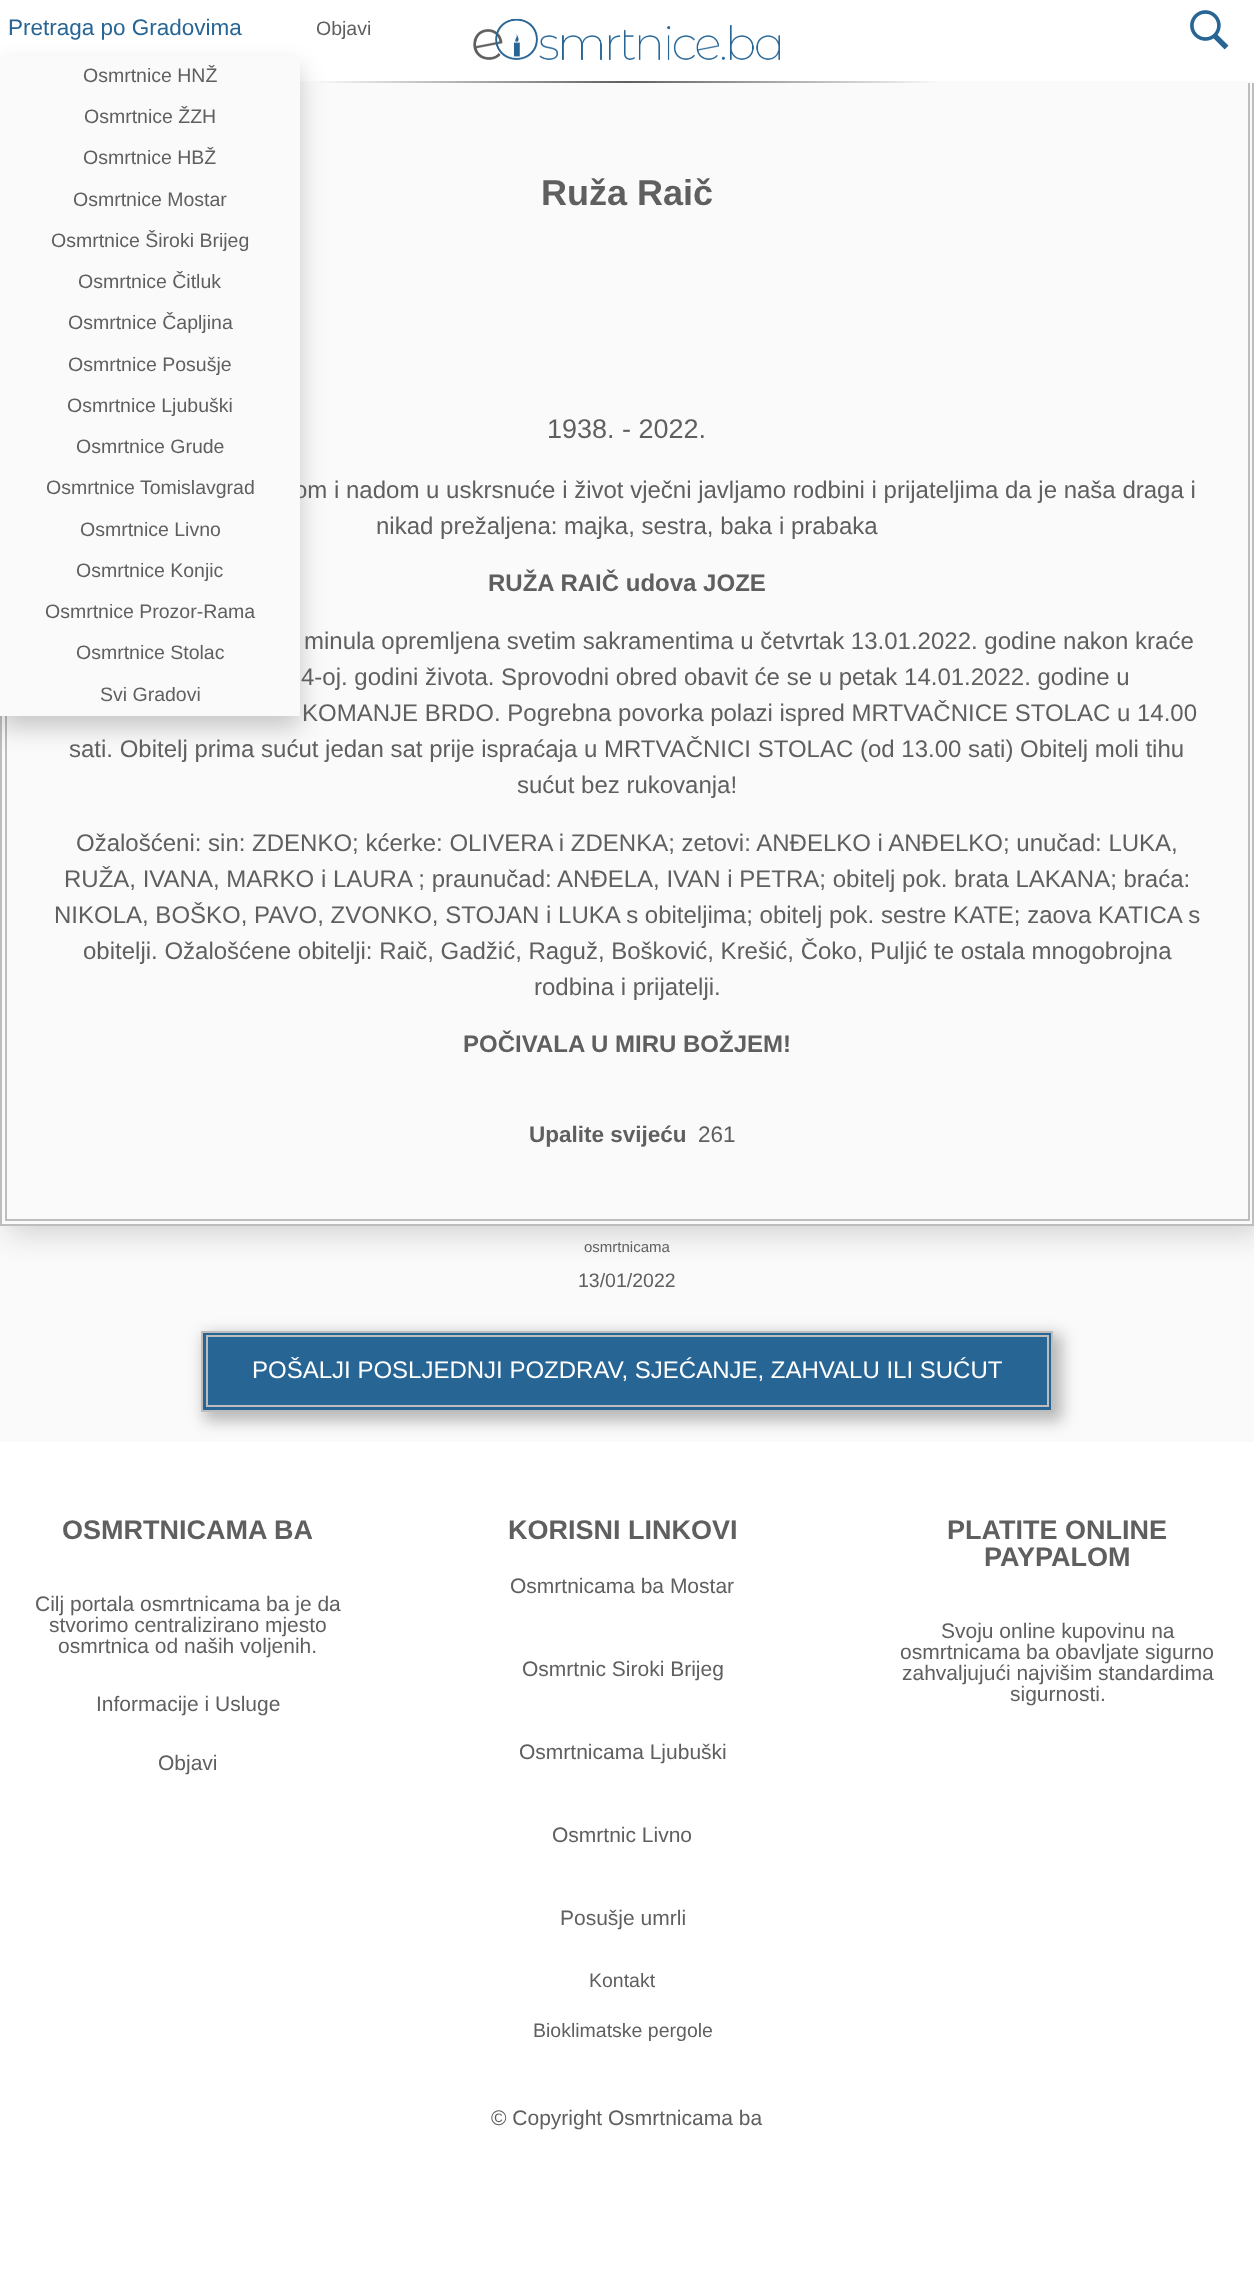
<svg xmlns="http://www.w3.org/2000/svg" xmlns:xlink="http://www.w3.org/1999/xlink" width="1254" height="2293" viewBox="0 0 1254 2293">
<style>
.cls-1{font:22.5px Liberation Sans;fill:#276595}
.cls-2{font:19.5px Liberation Sans;fill:#5f5f5f}
.cls-3{font:bold 36px Liberation Sans;fill:#5f5f5f}
.cls-4{font:27px Liberation Sans;fill:#5f5f5f}
.cls-5{font:24px Liberation Sans;fill:#5f5f5f}
.cls-6{font:bold 24px Liberation Sans;fill:#5f5f5f}
.cls-7{font:bold 22.5px Liberation Sans;fill:#5f5f5f}
.cls-8{font:22.5px Liberation Sans;fill:#5f5f5f}
.cls-9{font:15px Liberation Sans;fill:#5f5f5f}
.cls-10{font:24px Liberation Sans;fill:#ffffff}
.cls-11{font:bold 27px Liberation Sans;fill:#5f5f5f}
.cls-12{font:21px Liberation Sans;fill:#5f5f5f}
</style>
<defs>
<clipPath id="clip1"><rect x="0" y="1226" width="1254" height="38"/></clipPath>
<linearGradient id="g1" gradientUnits="userSpaceOnUse" x1="1254" y1="82" x2="0" y2="82"><stop offset="0.25" stop-color="#fafafa"/><stop offset="0.5" stop-color="#5f5f5f"/><stop offset="0.75" stop-color="#fafafa"/></linearGradient>
</defs>
<rect width="100%" height="100%" fill="#fafafa"/>
<g clip-path="url(#clip1)">
<rect fill="#cfcfcf" filter="blur(15px)" x="8" y="-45" width="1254" height="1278"/>
</g>
<rect fill="none" stroke="#bdbdbd" stroke-width="2" x="1" y="-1" width="1252" height="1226"/>
<rect fill="none" stroke="#bdbdbd" stroke-width="2" x="6" y="-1" width="1243" height="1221"/>
<rect fill="#ffffff" x="0" y="0" width="1254" height="81"/>
<rect fill="url(#g1)" x="319" y="81" width="935" height="2"/>
<rect fill="#000000" fill-opacity="0.2" filter="blur(12px)" x="0" y="68" width="300" height="660"/>
<image xlink:href="image0.png" x="473" y="18" width="307" height="42"/>
<image xlink:href="image1.png" x="1190" y="10" width="39" height="40"/>
<rect fill="#ffffff" x="0" y="1442" width="1254" height="851"/>
<rect fill="#b7b7b7" filter="blur(7.5px)" x="204" y="1334" width="858" height="87"/>
<rect fill="#276595" stroke="#bdbdbd" stroke-width="2" x="202" y="1332" width="850" height="79"/>
<rect fill="none" stroke="#bdbdbd" stroke-width="2" x="207" y="1336" width="841" height="70"/>
<text class="cls-1" x="8" y="35">Pretraga po Gradovima</text>
<text class="cls-2" x="316" y="35">Objavi</text>
<text class="cls-3" x="541" y="205">Ruža Raič</text>
<text class="cls-4" x="547" y="438">1938. - 2022.</text>
<text class="cls-5" x="294" y="498">om i nadom u uskrsnuće i život vječni javljamo rodbini i prijateljima da je naša draga i</text>
<rect fill="#fafafa" x="0" y="56" width="300" height="660"/>
<text class="cls-2" x="100" y="701">Svi Gradovi</text>
<text class="cls-2" x="76" y="659">Osmrtnice Stolac</text>
<text class="cls-2" x="45" y="618">Osmrtnice Prozor-Rama</text>
<text class="cls-2" x="76" y="577">Osmrtnice Konjic</text>
<text class="cls-2" x="80" y="536">Osmrtnice Livno</text>
<text class="cls-2" x="46" y="494">Osmrtnice Tomislavgrad</text>
<text class="cls-2" x="76" y="453">Osmrtnice Grude</text>
<text class="cls-2" x="67" y="412">Osmrtnice Ljubuški</text>
<text class="cls-2" x="68" y="371">Osmrtnice Posušje</text>
<text class="cls-2" x="68" y="329">Osmrtnice Čapljina</text>
<text class="cls-2" x="78" y="288">Osmrtnice Čitluk</text>
<text class="cls-2" x="51" y="247">Osmrtnice Široki Brijeg</text>
<text class="cls-2" x="73" y="206">Osmrtnice Mostar</text>
<text class="cls-2" x="83" y="164">Osmrtnice HBŽ</text>
<text class="cls-2" x="84" y="123">Osmrtnice ŽZH</text>
<text class="cls-2" x="83" y="82">Osmrtnice HNŽ</text>
<text class="cls-5" x="376" y="534">nikad prežaljena: majka, sestra, baka i prabaka</text>
<text class="cls-6" x="488" y="591">RUŽA RAIČ udova JOZE</text>
<text class="cls-5" x="304" y="649">minula opremljena svetim sakramentima u četvrtak 13.01.2022. godine nakon kraće</text>
<text class="cls-5" x="301" y="685">4-oj. godini života. Sprovodni obred obavit će se u petak 14.01.2022. godine u</text>
<text class="cls-5" x="302" y="721">KOMANJE BRDO. Pogrebna povorka polazi ispred MRTVAČNICE STOLAC u 14.00</text>
<text class="cls-5" x="69" y="757">sati. Obitelj prima sućut jedan sat prije ispraćaja u MRTVAČNICI STOLAC (od 13.00 sati) Obitelj moli tihu</text>
<text class="cls-5" x="517" y="793">sućut bez rukovanja!</text>
<text class="cls-5" x="76" y="851">Ožalošćeni: sin: ZDENKO; kćerke: OLIVERA i ZDENKA; zetovi: ANĐELKO i ANĐELKO; unučad: LUKA,</text>
<text class="cls-5" x="64" y="887">RUŽA, IVANA, MARKO i LAURA ; praunučad: ANĐELA, IVAN i PETRA; obitelj pok. brata LAKANA; braća:</text>
<text class="cls-5" x="54" y="923">NIKOLA, BOŠKO, PAVO, ZVONKO, STOJAN i LUKA s obiteljima; obitelj pok. sestre KATE; zaova KATICA s</text>
<text class="cls-5" x="83" y="959">obitelji. Ožalošćene obitelji: Raič, Gadžić, Raguž, Bošković, Krešić, Čoko, Puljić te ostala mnogobrojna</text>
<text class="cls-5" x="534" y="995">rodbina i prijatelji.</text>
<text class="cls-6" x="463" y="1052">POČIVALA U MIRU BOŽJEM!</text>
<text class="cls-7" x="529" y="1142">Upalite svijeću</text>
<text class="cls-8" x="698" y="1142">261</text>
<text class="cls-9" x="584" y="1252">osmrtnicama</text>
<text class="cls-2" x="578" y="1287">13/01/2022</text>
<text class="cls-10" x="252" y="1378">POŠALJI POSLJEDNJI POZDRAV, SJEĆANJE, ZAHVALU ILI SUĆUT</text>
<text class="cls-11" x="62" y="1539">OSMRTNICAMA BA</text>
<text class="cls-12" x="35" y="1611">Cilj portala osmrtnicama ba je da</text>
<text class="cls-12" x="49" y="1632">stvorimo centralizirano mjesto</text>
<text class="cls-12" x="58" y="1653">osmrtnica od naših voljenih.</text>
<text class="cls-12" x="96" y="1711">Informacije i Usluge</text>
<text class="cls-12" x="158" y="1770">Objavi</text>
<text class="cls-11" x="508" y="1539">KORISNI LINKOVI</text>
<text class="cls-12" x="510" y="1593">Osmrtnicama ba Mostar</text>
<text class="cls-12" x="522" y="1676">Osmrtnic Siroki Brijeg</text>
<text class="cls-12" x="519" y="1759">Osmrtnicama Ljubuški</text>
<text class="cls-12" x="552" y="1842">Osmrtnic Livno</text>
<text class="cls-12" x="560" y="1925">Posušje umrli</text>
<text class="cls-2" x="589" y="1987">Kontakt</text>
<text class="cls-2" x="533" y="2037">Bioklimatske pergole</text>
<text class="cls-11" x="947" y="1539">PLATITE ONLINE</text>
<text class="cls-11" x="984" y="1566">PAYPALOM</text>
<text class="cls-12" x="941" y="1638">Svoju online kupovinu na</text>
<text class="cls-12" x="900" y="1659">osmrtnicama ba obavljate sigurno</text>
<text class="cls-12" x="902" y="1680">zahvaljujući najvišim standardima</text>
<text class="cls-12" x="1010" y="1701">sigurnosti.</text>
<text class="cls-12" x="491" y="2125">© Copyright Osmrtnicama ba</text>
</svg>
